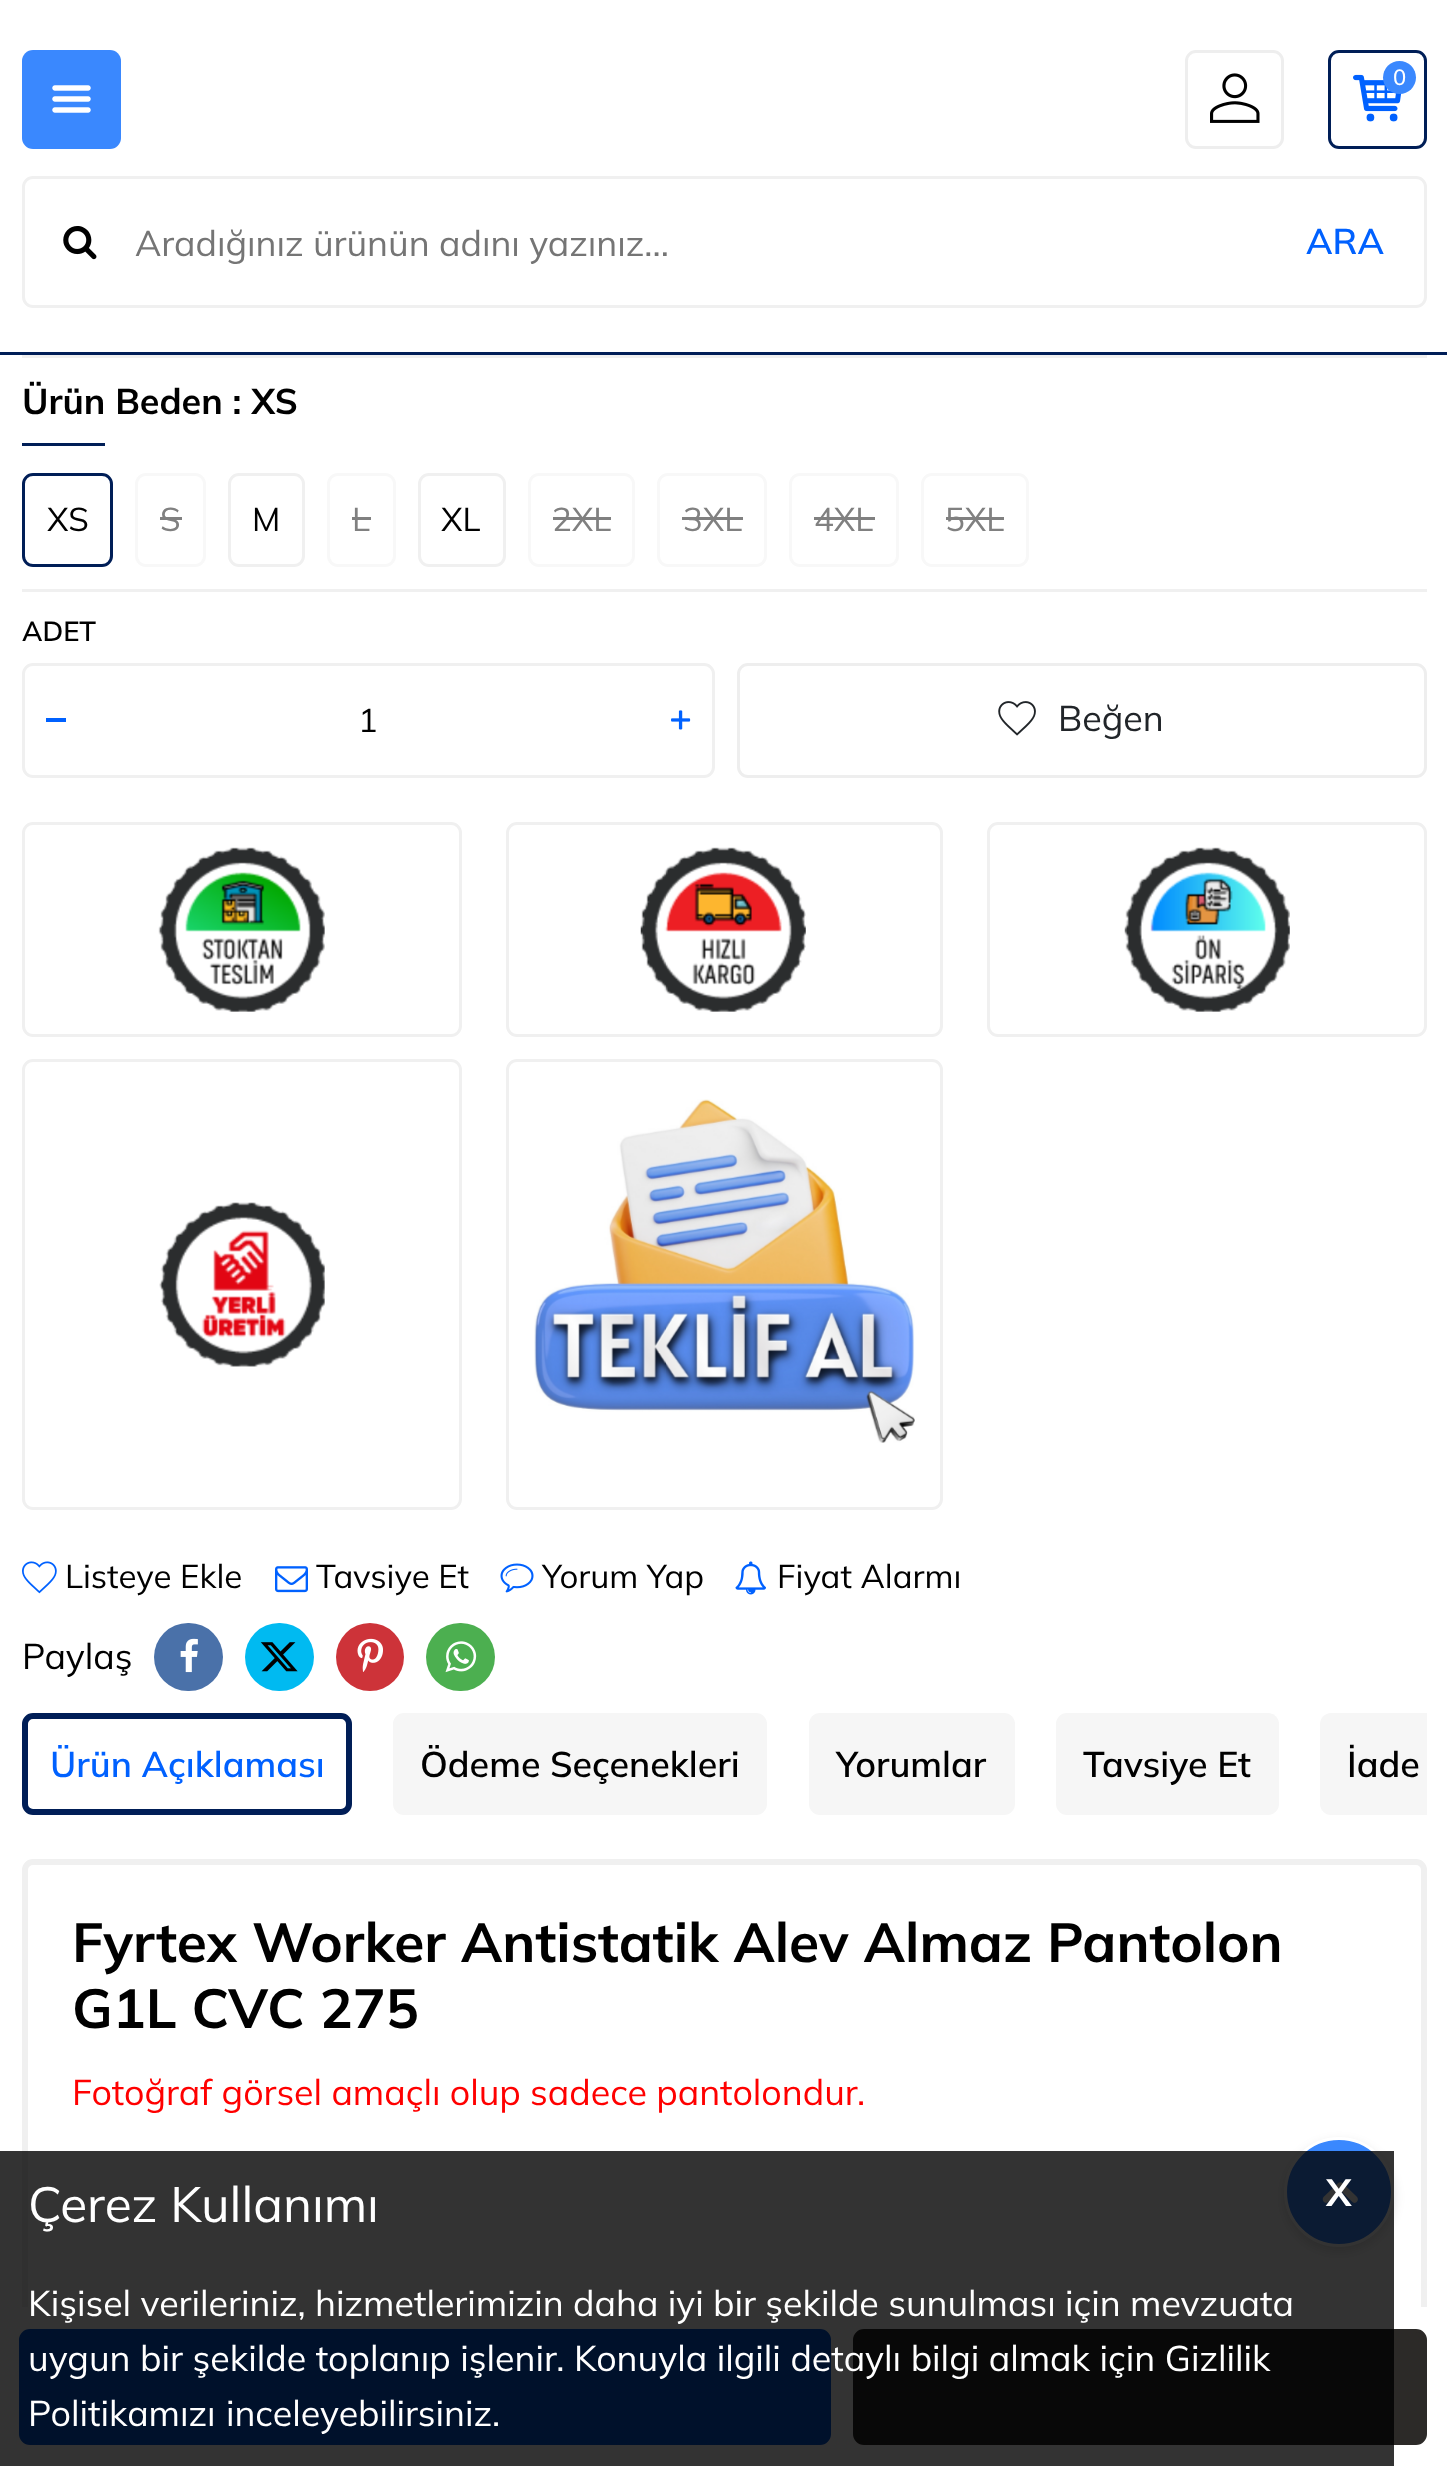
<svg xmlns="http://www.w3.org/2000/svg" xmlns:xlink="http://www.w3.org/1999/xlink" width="1447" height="2466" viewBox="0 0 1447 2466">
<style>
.cls-1{font:500 22px Mulish;fill:#ffffff}
.cls-2{font:35.75px Mulish;fill:#757575}
.cls-3{font:600 35.75px Mulish;fill:#0061ff}
.cls-4{font:bold 35.75px Mulish;fill:#000000}
.cls-5{font:33px Mulish;fill:#000000}
.cls-6{font:33px Mulish;fill:#808080}
.cls-7{font:600 27.5px Mulish;fill:#000000}
.cls-8{font:35.75px Mulish;fill:#212529}
.cls-9{font:35.75px Mulish;fill:#000000}
.cls-10{font:600 35.75px Mulish;fill:#000000}
.cls-11{font:bold 55px Mulish;fill:#000000}
.cls-12{font:35.75px Mulish;fill:#ff0000}
.cls-13{font:49.5px Mulish;fill:#ffffff}
.cls-14{font:bold 38px Mulish;fill:#ffffff}
.cls-15{font:35.75px Mulish;fill:#ffffff}
</style>
<rect width="100%" height="100%" fill="#ffffff"/>
<rect fill="#001e57" x="0" y="352" width="1447" height="3"/>
<rect fill="#3a88fe" x="22" y="50" width="99" height="99" rx="11"/>
<image xlink:href="image0.png" x="52" y="85" width="39" height="28"/>
<rect fill="none" stroke="#eeeeee" stroke-width="3" x="1186.5" y="51.5" width="96" height="96" rx="9.5"/>
<image xlink:href="image1.png" x="1210" y="73" width="50" height="50"/>
<rect fill="none" stroke="#001e57" stroke-width="3" x="1329.5" y="51.5" width="96" height="96" rx="9.5"/>
<image xlink:href="image2.png" x="1353" y="74" width="49" height="48"/>
<circle fill="#3a88fe" cx="1399.5" cy="77.5" r="16.5"/>
<rect fill="none" stroke="#f0f0f0" stroke-width="3" x="23.5" y="177.5" width="1402" height="129" rx="9.5"/>
<image xlink:href="image3.png" x="63" y="226" width="34" height="34"/>
<rect fill="none" stroke="#f0f0f0" stroke-width="6" x="25" y="1862" width="1399" height="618" rx="8"/>
<rect fill="#000000" fill-opacity="0.13" filter="blur(5.5px)" x="1284" y="2142" width="110" height="110" rx="55"/>
<circle fill="#3a88fe" stroke="#ffffff" stroke-width="3" cx="1339" cy="2192" r="53.5"/>
<image xlink:href="image4.png" x="1322" y="2182" width="36" height="21"/>
<rect fill="#f0f0f0" x="22" y="355" width="1405" height="3"/>
<rect fill="#f0f0f0" x="22" y="589" width="1405" height="3"/>
<rect fill="#001e57" x="22" y="443" width="83" height="3"/>
<rect fill="none" stroke="#001e57" stroke-width="3" x="23.5" y="474.5" width="88" height="91" rx="9.5"/>
<rect fill="none" stroke="#f8f8f8" stroke-width="3" x="136.5" y="474.5" width="68" height="91" rx="9.5"/>
<rect fill="#808080" x="160" y="517" width="22" height="3"/>
<rect fill="none" stroke="#f0f0f0" stroke-width="3" x="229.5" y="474.5" width="74" height="91" rx="9.5"/>
<rect fill="none" stroke="#f8f8f8" stroke-width="3" x="328.5" y="474.5" width="66" height="91" rx="9.5"/>
<rect fill="#808080" x="352" y="517" width="19" height="3"/>
<rect fill="none" stroke="#f0f0f0" stroke-width="3" x="419.5" y="474.5" width="85" height="91" rx="9.5"/>
<rect fill="none" stroke="#f8f8f8" stroke-width="3" x="529.5" y="474.5" width="104" height="91" rx="9.5"/>
<rect fill="#808080" x="553" y="517" width="58" height="3"/>
<rect fill="none" stroke="#f8f8f8" stroke-width="3" x="658.5" y="474.5" width="107" height="91" rx="9.5"/>
<rect fill="#808080" x="682" y="517" width="61" height="3"/>
<rect fill="none" stroke="#f8f8f8" stroke-width="3" x="790.5" y="474.5" width="107" height="91" rx="9.5"/>
<rect fill="#808080" x="814" y="517" width="61" height="3"/>
<rect fill="none" stroke="#f8f8f8" stroke-width="3" x="922.5" y="474.5" width="105" height="91" rx="9.5"/>
<rect fill="#808080" x="946" y="517" width="58" height="3"/>
<rect fill="none" stroke="#f0f0f0" stroke-width="3" x="23.5" y="664.5" width="690" height="112" rx="9.5"/>
<rect fill="#0061ff" x="46" y="718" width="20" height="4"/>
<image xlink:href="image5.png" x="671" y="710" width="20" height="20"/>
<rect fill="none" stroke="#eeeeee" stroke-width="3" x="738.5" y="664.5" width="687" height="112" rx="9.5"/>
<image xlink:href="image6.png" x="998" y="701" width="38" height="35"/>
<rect fill="#ffffff" x="22" y="2307" width="1405" height="159"/>
<rect fill="#0056d6" stroke="#0056d6" stroke-width="3" x="20.5" y="2330.5" width="809" height="113" rx="9.5"/>
<rect fill="#2c2a28" stroke="#2c2a28" stroke-width="3" x="854.5" y="2330.5" width="571" height="113" rx="9.5"/>
<rect fill="none" stroke="#f0f0f0" stroke-width="3" x="23.5" y="823.5" width="437" height="212" rx="9.5"/>
<image xlink:href="image7.png" x="158" y="847" width="167" height="165"/>
<rect fill="none" stroke="#f0f0f0" stroke-width="3" x="507.5" y="823.5" width="434" height="212" rx="9.5"/>
<image xlink:href="image8.png" x="640" y="847" width="166" height="165"/>
<rect fill="none" stroke="#f0f0f0" stroke-width="3" x="988.5" y="823.5" width="437" height="212" rx="9.5"/>
<image xlink:href="image9.png" x="1124" y="847" width="166" height="165"/>
<rect fill="none" stroke="#f0f0f0" stroke-width="3" x="23.5" y="1060.5" width="437" height="448" rx="9.5"/>
<image xlink:href="image10.png" x="159" y="1202" width="166" height="165"/>
<rect fill="none" stroke="#f0f0f0" stroke-width="3" x="507.5" y="1060.5" width="434" height="448" rx="9.5"/>
<image xlink:href="image11.png" x="534" y="1099" width="381" height="344"/>
<image xlink:href="image12.png" x="22" y="1561" width="35" height="33"/>
<image xlink:href="image13.png" x="275" y="1566" width="33" height="27"/>
<image xlink:href="image14.png" x="500" y="1563" width="34" height="30"/>
<image xlink:href="image15.png" x="735" y="1561" width="31" height="34"/>
<rect fill="#4a71a9" x="154" y="1623" width="69" height="68" rx="34"/>
<image xlink:href="image16.png" x="180" y="1638" width="18" height="35"/>
<rect fill="#00baf1" x="245" y="1623" width="69" height="68" rx="34"/>
<image xlink:href="image17.png" x="260" y="1642" width="38" height="30"/>
<circle fill="#cd3339" cx="370" cy="1657" r="34"/>
<image xlink:href="image18.png" x="357" y="1638" width="26" height="34"/>
<rect fill="#4caf50" x="426" y="1623" width="69" height="68" rx="34"/>
<image xlink:href="image19.png" x="445" y="1641" width="32" height="32"/>
<rect fill="none" stroke="#001e57" stroke-width="6" x="25" y="1716" width="324" height="96" rx="8"/>
<rect fill="#f6f6f6" x="393" y="1713" width="374" height="102" rx="11"/>
<rect fill="#f6f6f6" x="809" y="1713" width="206" height="102" rx="11"/>
<rect fill="#f6f6f6" x="1056" y="1713" width="223" height="102" rx="11"/>
<path fill="#f6f6f6" d="M1331 1713H1427V1815H1331C1325 1815 1320 1810 1320 1804V1724C1320 1718 1325 1713 1331 1713Z"/>
<rect fill="#000000" fill-opacity="0.8" x="0" y="2151" width="1394" height="315"/>
<text class="cls-1" x="1393" y="85">0</text>
<text class="cls-2" x="135" y="256">Aradığınız ürünün adını yazınız...</text>
<text class="cls-3" x="1306" y="254">ARA</text>
<text class="cls-4" x="22" y="414">Ürün Beden : XS</text>
<text class="cls-5" x="47" y="531">XS</text>
<text class="cls-6" x="160" y="531">S</text>
<text class="cls-5" x="252" y="531">M</text>
<text class="cls-6" x="352" y="531">L</text>
<text class="cls-5" x="441" y="531">XL</text>
<text class="cls-6" x="552" y="531">2XL</text>
<text class="cls-6" x="683" y="531">3XL</text>
<text class="cls-6" x="814" y="531">4XL</text>
<text class="cls-6" x="945" y="531">5XL</text>
<text class="cls-7" x="22" y="641">ADET</text>
<text class="cls-5" x="358" y="732">1</text>
<text class="cls-8" x="1058" y="731">Beğen</text>
<text class="cls-5" x="65" y="1588">Listeye Ekle</text>
<text class="cls-5" x="316" y="1588">Tavsiye Et</text>
<text class="cls-5" x="542" y="1588">Yorum Yap</text>
<text class="cls-5" x="777" y="1588">Fiyat Alarmı</text>
<text class="cls-9" x="22" y="1669">Paylaş</text>
<text class="cls-3" x="50" y="1777">Ürün Açıklaması</text>
<text class="cls-10" x="420" y="1777">Ödeme Seçenekleri</text>
<text class="cls-10" x="836" y="1777">Yorumlar</text>
<text class="cls-10" x="1083" y="1777">Tavsiye Et</text>
<text class="cls-10" x="1347" y="1777">İade</text>
<text class="cls-11"><tspan x="72" y="1962">Fyrtex Worker Antistatik Alev Almaz Pantolon</tspan><tspan x="72" y="2028">G1L CVC 275</tspan></text>
<text class="cls-12" x="72" y="2105">Fotoğraf görsel amaçlı olup sadece pantolondur.</text>
<text class="cls-13" x="28" y="2222">Çerez Kullanımı</text>
<text class="cls-14" x="1326" y="2206">X</text>
<text class="cls-15"><tspan x="28" y="2316">Kişisel verileriniz, hizmetlerimizin daha iyi bir şekilde sunulması için mevzuata</tspan><tspan x="28" y="2371" word-spacing="0.25">uygun bir şekilde toplanıp işlenir. Konuyla ilgili detaylı bilgi almak için Gizlilik</tspan><tspan x="28" y="2426" word-spacing="1">Politikamızı inceleyebilirsiniz.</tspan></text>
</svg>
